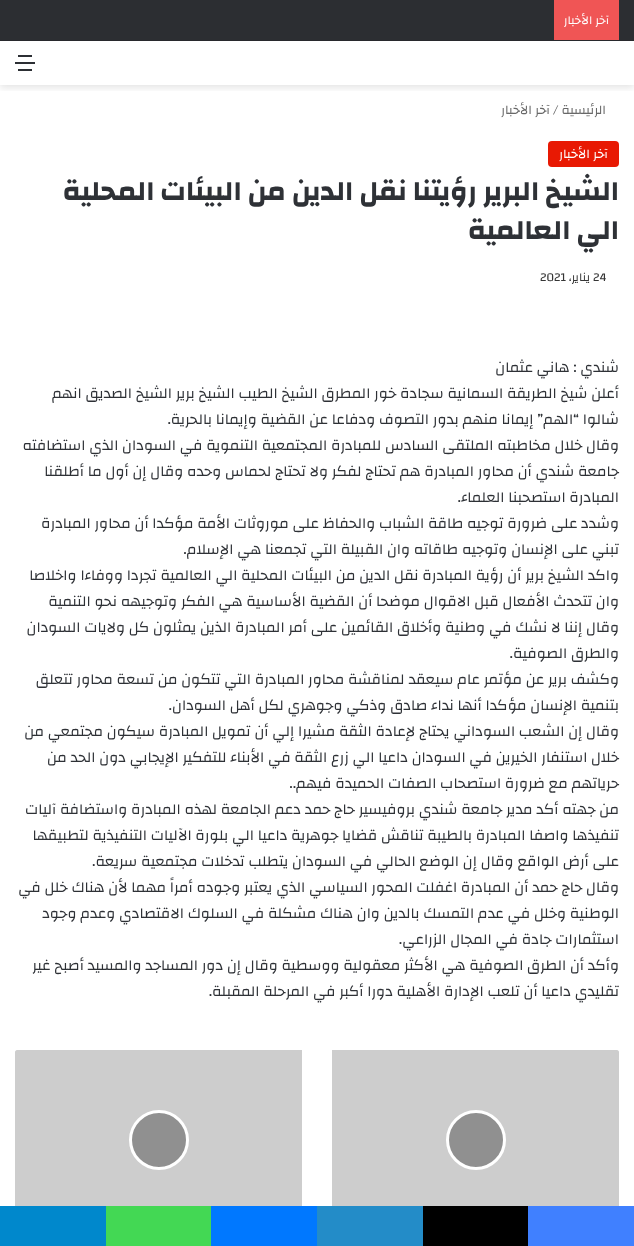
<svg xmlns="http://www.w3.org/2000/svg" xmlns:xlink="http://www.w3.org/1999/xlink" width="634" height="1246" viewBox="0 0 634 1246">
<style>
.cls-1{font:12px Changa;direction:rtl;fill:#ffffff}
.cls-2{font:13px Changa;direction:rtl;fill:#686868}
.cls-3{font:13px Changa;fill:#686868}
.cls-4{font:13px Changa;direction:rtl;fill:#ffffff}
.cls-5{font:bold 28px Changa;direction:rtl;fill:#2e3136}
.cls-6{font:12px Changa;fill:#353535}
.cls-7{font:12px Changa;direction:rtl;fill:#353535}
.cls-8{font:15px Changa;direction:rtl;fill:#2e3136}
</style>
<defs>
<clipPath id="clip1"><rect x="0" y="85" width="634" height="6"/></clipPath>
</defs>
<rect width="100%" height="100%" fill="#ffffff"/>
<g clip-path="url(#clip1)">
<rect fill="#000000" fill-opacity="0.1" filter="blur(3.5px)" x="0" y="44" width="634" height="44"/>
</g>
<rect fill="#2c2e32" x="0" y="0" width="634" height="40"/>
<rect fill="#28292d" x="0" y="40" width="634" height="1"/>
<rect fill="#f05555" x="554" y="0" width="65" height="40"/>
<rect fill="#2c2f34" x="15" y="62" width="20" height="2"/>
<rect fill="#2c2f34" x="18" y="55" width="14" height="2"/>
<rect fill="#2c2f34" x="18" y="69" width="14" height="2"/>
<rect fill="#e81903" x="548" y="141" width="71" height="26" rx="4"/>
<path fill="#cdcdcd" d="M332 1050H617C618 1050 619 1051 619 1052V1230H332Z"/>
<circle fill="#909090" stroke="#ffffff" stroke-width="3" cx="476" cy="1140" r="28.5"/>
<path fill="#cdcdcd" d="M17 1050H302V1230H15V1052C15 1051 16 1050 17 1050Z"/>
<circle fill="#909090" stroke="#ffffff" stroke-width="3" cx="159" cy="1140" r="28.5"/>
<rect fill="#4080ff" x="528" y="1206" width="106" height="40"/>
<rect fill="#000000" x="423" y="1206" width="105" height="40"/>
<rect fill="#238cc8" x="317" y="1206" width="106" height="40"/>
<rect fill="#0078ff" x="211" y="1206" width="106" height="40"/>
<rect fill="#43d854" x="106" y="1206" width="105" height="40"/>
<rect fill="#0088cc" x="0" y="1206" width="106" height="40"/>
<text class="cls-1" x="609" y="24">آخر الأخبار</text>
<text class="cls-2" x="606" y="114">الرئيسية</text>
<text class="cls-3" x="553" y="114">/</text>
<text class="cls-2" x="550" y="114">آخر الأخبار</text>
<text class="cls-4" x="608" y="158">آخر الأخبار</text>
<text class="cls-5"><tspan x="619" y="200">الشيخ البرير رؤيتنا نقل الدين من البيئات المحلية</tspan><tspan x="619" y="239">الي العالمية</tspan></text>
<text class="cls-6" x="593" y="281">24</text>
<text class="cls-7" x="590" y="281">يناير،</text>
<text class="cls-6" x="540" y="281">2021</text>
<text class="cls-8"><tspan x="619" y="372">شندي : هاني عثمان</tspan><tspan x="619" y="398">أعلن شيخ الطريقة السمانية سجادة خور المطرق الشيخ الطيب الشيخ برير الشيخ الصديق انهم</tspan><tspan x="619" y="424">شالوا “الهم” إيمانا منهم بدور التصوف ودفاعا عن القضية وإيمانا بالحرية.</tspan><tspan x="619" y="450">وقال خلال مخاطبته الملتقى السادس للمبادرة المجتمعية التنموية في السودان الذي استضافته</tspan><tspan x="619" y="476">جامعة شندي أن محاور المبادرة هم تحتاج لفكر ولا تحتاج لحماس وحده وقال إن أول ما أطلقنا</tspan><tspan x="619" y="502">المبادرة استصحبنا العلماء.</tspan><tspan x="619" y="528">وشدد على ضرورة توجيه طاقة الشباب والحفاظ على موروثات الأمة مؤكدا أن محاور المبادرة</tspan><tspan x="619" y="554">تبني على الإنسان وتوجيه طاقاته وان القبيلة التي تجمعنا هي الإسلام.</tspan><tspan x="619" y="580">واكد الشيخ برير أن رؤية المبادرة نقل الدين من البيئات المحلية الي العالمية تجردا ووفاءا واخلاصا</tspan><tspan x="619" y="606">وان تتحدث الأفعال قبل الاقوال موضحا أن القضية الأساسية هي الفكر وتوجيهه نحو التنمية</tspan><tspan x="619" y="632">وقال إننا لا نشك في وطنية وأخلاق القائمين على أمر المبادرة الذين يمثلون كل ولايات السودان</tspan><tspan x="619" y="658">والطرق الصوفية.</tspan><tspan x="619" y="684">وكشف برير عن مؤتمر عام سيعقد لمناقشة محاور المبادرة التي تتكون من تسعة محاور تتعلق</tspan><tspan x="619" y="710">بتنمية الإنسان مؤكدا أنها نداء صادق وذكي وجوهري لكل أهل السودان.</tspan><tspan x="619" y="736">وقال إن الشعب السوداني يحتاج لإعادة الثقة مشيرا إلي أن تمويل المبادرة سيكون مجتمعي من</tspan><tspan x="619" y="762">خلال استنفار الخيرين في السودان داعيا الي زرع الثقة في الأبناء للتفكير الإيجابي دون الحد من</tspan><tspan x="619" y="788">حرياتهم مع ضرورة استصحاب الصفات الحميدة فيهم..</tspan><tspan x="619" y="814">من جهته أكد مدير جامعة شندي بروفيسير حاج حمد دعم الجامعة لهذه المبادرة واستضافة آليات</tspan><tspan x="619" y="840">تنفيذها واصفا المبادرة بالطيبة تناقش قضايا جوهرية داعيا الي بلورة الآليات التنفيذية لتطبيقها</tspan><tspan x="619" y="866">على أرض الواقع وقال إن الوضع الحالي في السودان يتطلب تدخلات مجتمعية سريعة.</tspan><tspan x="619" y="892">وقال حاج حمد أن المبادرة اغفلت المحور السياسي الذي يعتبر وجوده أمراً مهما لأن هناك خلل في</tspan><tspan x="619" y="918">الوطنية وخلل في عدم التمسك بالدين وان هناك مشكلة في السلوك الاقتصادي وعدم وجود</tspan><tspan x="619" y="944">استثمارات جادة في المجال الزراعي.</tspan><tspan x="619" y="970">وأكد أن الطرق الصوفية هي الأكثر معقولية ووسطية وقال إن دور المساجد والمسيد أصبح غير</tspan><tspan x="619" y="996">تقليدي داعيا أن تلعب الإدارة الأهلية دورا أكبر في المرحلة المقبلة.</tspan></text>
</svg>
